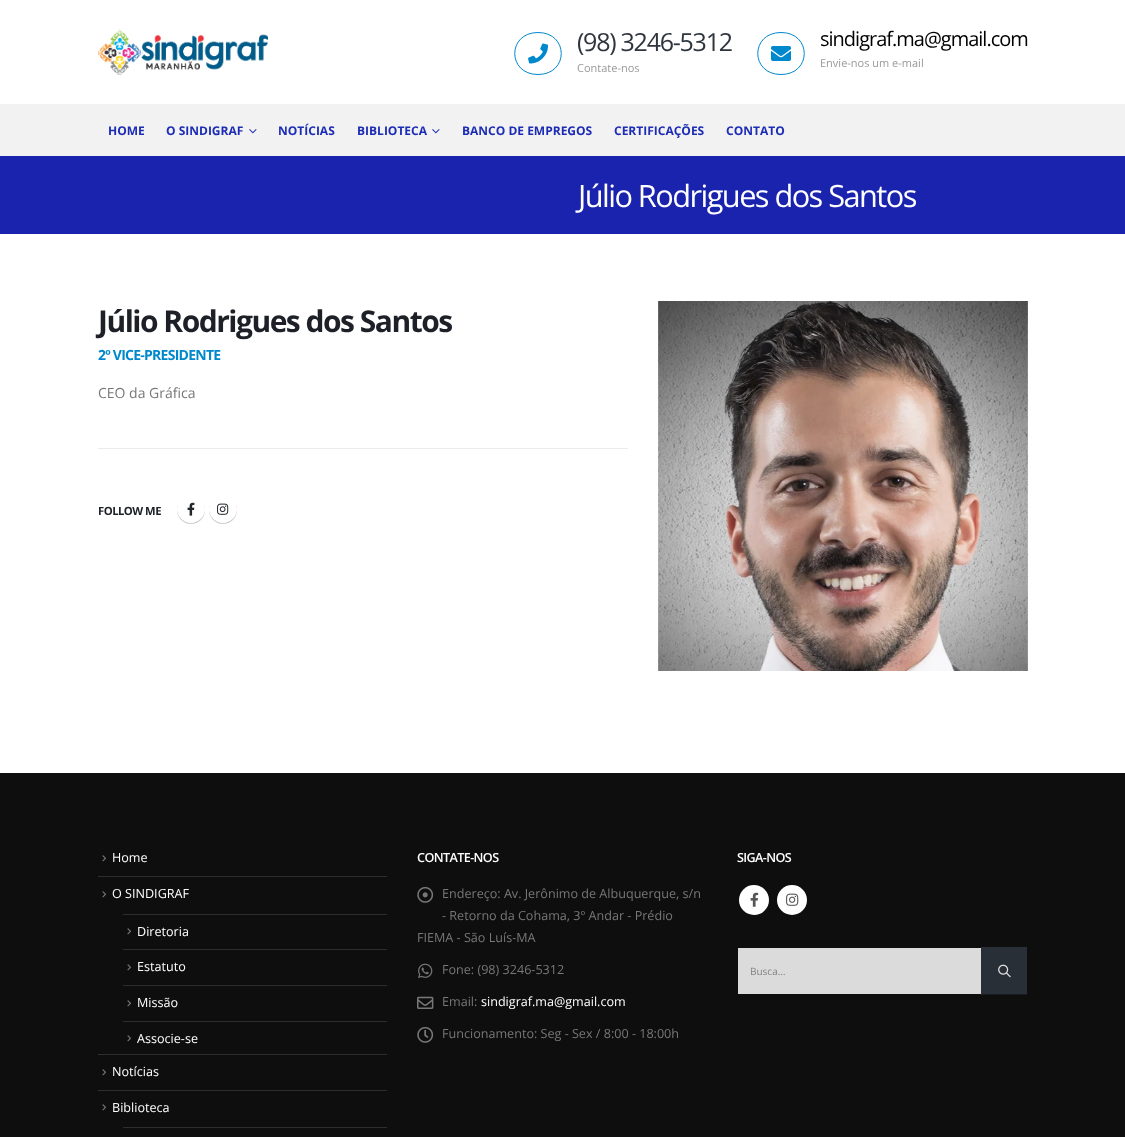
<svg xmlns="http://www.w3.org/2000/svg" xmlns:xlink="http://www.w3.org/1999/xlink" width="1125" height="1137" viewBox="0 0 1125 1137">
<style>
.cls-1{font:25px Open Sans;letter-spacing:-1.25px;fill:#2e353e}
.cls-2{font:11px Open Sans;fill:#999999}
.cls-3{font:20px Open Sans;letter-spacing:-1px;fill:#000000}
.cls-4{font:bold 12px Open Sans;fill:#1c2cb5}
.cls-5{font:30.75px Open Sans;letter-spacing:-1.55px;fill:#ffffff}
.cls-6{font:bold 30px Open Sans;letter-spacing:-1.5px;fill:#1d2127}
.cls-7{font:bold 14px Open Sans;letter-spacing:-0.75px;fill:#0088cc}
.cls-8{font:14px Open Sans;fill:#777777}
.cls-9{font:bold 11.25px Open Sans;letter-spacing:-0.5px;fill:#1d2127}
.cls-10{font:12.6px Open Sans;fill:#ffffff}
.cls-11{font:600 12.6px Open Sans;letter-spacing:-0.6px;fill:#ffffff}
.cls-12{font:12.6px Open Sans;fill:#777777}
.cls-13{font:10px Open Sans;fill:#848484}
</style>
<defs>
<clipPath id="clip1"><path d="M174 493H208V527H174ZM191 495C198.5 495 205 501.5 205 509C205 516.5 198.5 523 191 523C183.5 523 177 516.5 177 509C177 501.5 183.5 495 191 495Z" clip-rule="evenodd"/></clipPath>
<clipPath id="clip2"><path d="M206 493H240V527H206ZM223 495C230.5 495 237 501.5 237 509C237 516.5 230.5 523 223 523C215.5 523 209 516.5 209 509C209 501.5 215.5 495 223 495Z" clip-rule="evenodd"/></clipPath>
</defs>
<rect width="100%" height="100%" fill="#ffffff"/>
<image xlink:href="image0.png" x="98" y="29" width="170" height="46"/>
<path fill="none" stroke="#0088cc" d="M538 32.5C569 32.5 569 74.5 538 74.5C507 74.5 507 32.5 538 32.5Z"/>
<image xlink:href="image1.png" x="528" y="43" width="20" height="21"/>
<path fill="none" stroke="#0088cc" d="M781 32.5C812 32.5 812 74.5 781 74.5C750 74.5 750 32.5 781 32.5Z"/>
<image xlink:href="image2.png" x="771" y="46" width="20" height="15"/>
<rect fill="#f2f2f2" x="0" y="104" width="1125" height="52"/>
<image xlink:href="image3.png" x="249" y="129" width="8" height="5"/>
<image xlink:href="image3.png" x="432" y="129" width="8" height="5"/>
<rect fill="#1a23ad" x="0" y="156" width="1125" height="78"/>
<rect fill="#ebebeb" x="98" y="448" width="530" height="1"/>
<g clip-path="url(#clip1)">
<rect fill="#000000" fill-opacity="0.2" filter="blur(0.5px)" x="177" y="496" width="28" height="28" rx="14"/>
</g>
<image xlink:href="image4.png" x="187" y="502" width="8" height="14"/>
<g clip-path="url(#clip2)">
<rect fill="#000000" fill-opacity="0.2" filter="blur(0.5px)" x="209" y="496" width="28" height="28" rx="14"/>
</g>
<image xlink:href="image5.png" x="217" y="503" width="12" height="12"/>
<image xlink:href="image6.png" x="658" y="301" width="370" height="370"/>
<rect fill="#0e0e0e" x="0" y="773" width="1125" height="364"/>
<image xlink:href="image7.png" x="102" y="855" width="4" height="7"/>
<rect fill="#2e2e2e" x="98" y="876" width="289" height="1"/>
<image xlink:href="image7.png" x="102" y="891" width="4" height="7"/>
<rect fill="#2e2e2e" x="123" y="914" width="264" height="1"/>
<image xlink:href="image7.png" x="127" y="928" width="4" height="7"/>
<rect fill="#2e2e2e" x="123" y="949" width="264" height="1"/>
<image xlink:href="image7.png" x="127" y="964" width="4" height="7"/>
<rect fill="#2e2e2e" x="123" y="985" width="264" height="1"/>
<image xlink:href="image7.png" x="127" y="1000" width="4" height="7"/>
<rect fill="#2e2e2e" x="123" y="1021" width="264" height="1"/>
<image xlink:href="image7.png" x="127" y="1035" width="4" height="7"/>
<rect fill="#2e2e2e" x="98" y="1054" width="289" height="1"/>
<image xlink:href="image7.png" x="102" y="1069" width="4" height="7"/>
<rect fill="#2e2e2e" x="98" y="1090" width="289" height="1"/>
<image xlink:href="image7.png" x="102" y="1104" width="4" height="7"/>
<rect fill="#2e2e2e" x="123" y="1127" width="264" height="1"/>
<image xlink:href="image8.png" x="417" y="886" width="17" height="17"/>
<image xlink:href="image9.png" x="418" y="963" width="15" height="15"/>
<image xlink:href="image10.png" x="417" y="996" width="17" height="13"/>
<image xlink:href="image11.png" x="417" y="1026" width="17" height="17"/>
<circle fill="#ffffff" cx="754" cy="900" r="15"/>
<image xlink:href="image12.png" x="750" y="892" width="9" height="15"/>
<circle fill="#ffffff" cx="792" cy="900" r="15"/>
<image xlink:href="image13.png" x="786" y="893" width="13" height="13"/>
<rect fill="#dbdbdb" x="738" y="948" width="243" height="46"/>
<rect fill="#292f37" x="982" y="947" width="45" height="47"/>
<rect fill="#171a1e" x="981" y="994" width="46" height="1"/>
<rect fill="#292f37" x="981" y="947" width="1" height="48"/>
<image xlink:href="image14.png" x="998" y="964" width="13" height="14"/>
<text class="cls-1" x="577" y="51">(98) 3246-5312</text>
<text class="cls-2" x="577" y="72">Contate-nos</text>
<text class="cls-3" x="820" y="46">sindigraf.ma@gmail.com</text>
<text class="cls-2" x="820" y="67">Envie-nos um e-mail</text>
<text class="cls-4" x="108" y="135">HOME</text>
<text class="cls-4" x="166" y="135">O SINDIGRAF</text>
<text class="cls-4" x="278" y="135">NOTÍCIAS</text>
<text class="cls-4" x="357" y="135">BIBLIOTECA</text>
<text class="cls-4" x="462" y="135">BANCO DE EMPREGOS</text>
<text class="cls-4" x="614" y="135">CERTIFICAÇÕES</text>
<text class="cls-4" x="726" y="135">CONTATO</text>
<text class="cls-5" x="578" y="207">Júlio Rodrigues dos Santos</text>
<text class="cls-6" x="98" y="332">Júlio Rodrigues dos Santos</text>
<text class="cls-7" x="98" y="360">2º VICE-PRESIDENTE</text>
<text class="cls-8" x="98" y="398">CEO da Gráfica</text>
<text class="cls-9" x="98" y="515">FOLLOW ME</text>
<text class="cls-10" x="112" y="862">Home</text>
<text class="cls-10" x="112" y="898">O SINDIGRAF</text>
<text class="cls-10" x="137" y="936">Diretoria</text>
<text class="cls-10" x="137" y="971">Estatuto</text>
<text class="cls-10" x="137" y="1007">Missão</text>
<text class="cls-10" x="137" y="1043">Associe-se</text>
<text class="cls-10" x="112" y="1076">Notícias</text>
<text class="cls-10" x="112" y="1112">Biblioteca</text>
<text class="cls-11" x="417" y="862">CONTATE-NOS</text>
<text class="cls-12"><tspan x="442" y="898">Endereço: Av. Jerônimo de Albuquerque, s/n</tspan><tspan x="442" y="920">- Retorno da Cohama, 3º Andar - Prédio</tspan></text>
<text class="cls-12" x="417" y="942">FIEMA - São Luís-MA</text>
<text class="cls-12" x="442" y="974">Fone: (98) 3246-5312</text>
<text class="cls-12" x="442" y="1006">Email:</text>
<text class="cls-10" x="481" y="1006">sindigraf.ma@gmail.com</text>
<text class="cls-12" x="442" y="1038">Funcionamento: Seg - Sex / 8:00 - 18:00h</text>
<text class="cls-11" x="737" y="862">SIGA-NOS</text>
<text class="cls-13" x="750" y="975">Busca…</text>
</svg>
